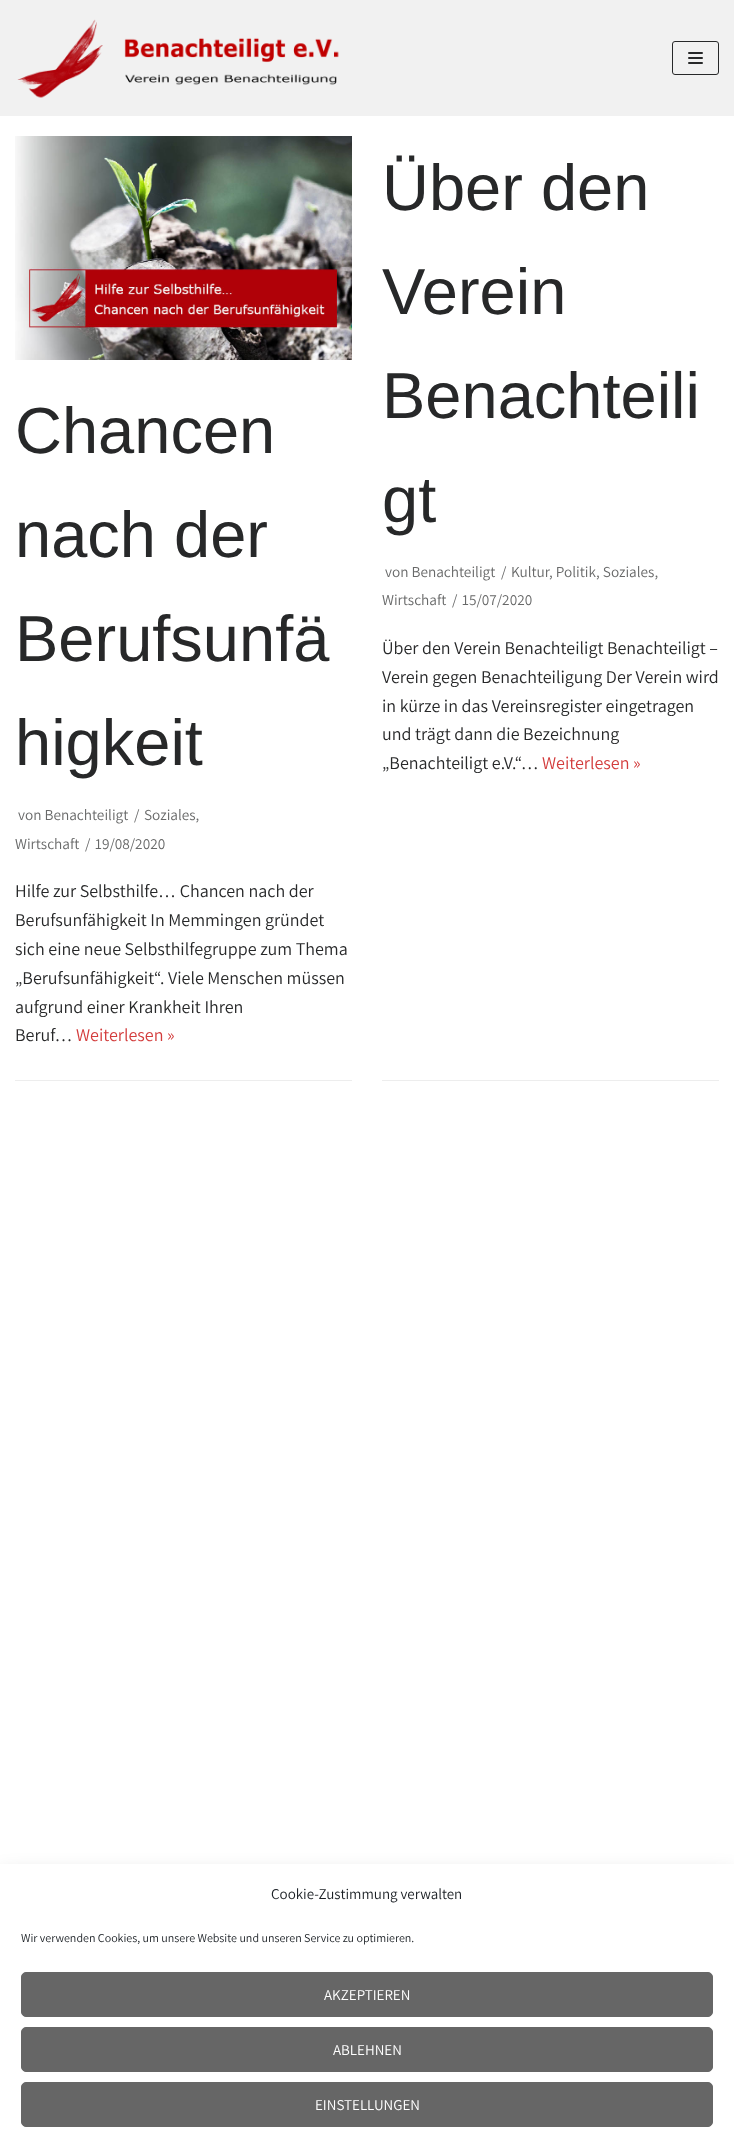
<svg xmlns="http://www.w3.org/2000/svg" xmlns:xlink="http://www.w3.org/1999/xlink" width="734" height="2153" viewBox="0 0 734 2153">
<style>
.cls-1{font:65px Liberation Sans;fill:#272829}
.cls-2{font:200 15.25px Assistant;fill:#686969}
.cls-3{font:200 18px Assistant;fill:#272829}
.cls-4{font:200 18px Assistant;fill:#d33c3c}
.cls-5{font:200 15px Assistant;fill:#191e23}
.cls-6{font:200 12px Assistant;fill:#191e23}
.cls-7{font:200 15px Assistant;fill:#ffffff}
</style>
<rect width="100%" height="100%" fill="#ffffff"/>
<rect fill="#f1f1f1" x="0" y="0" width="734" height="116"/>
<image xlink:href="image0.png" x="17" y="19" width="322" height="79"/>
<rect fill="none" stroke="#272829" x="672.5" y="41.5" width="46" height="33" rx="2.5"/>
<rect fill="#272829" x="688" y="52" width="15" height="2" rx="1"/>
<rect fill="#272829" x="688" y="57" width="15" height="2" rx="1"/>
<rect fill="#272829" x="688" y="62" width="15" height="2" rx="1"/>
<rect fill="#ededed" x="15" y="1080" width="337" height="1"/>
<image xlink:href="image1.png" x="15" y="136" width="337" height="224"/>
<rect fill="#ededed" x="382" y="1080" width="337" height="1"/>
<rect fill="#000000" fill-opacity="0.19" filter="blur(10px)" x="0" y="1874" width="734" height="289"/>
<rect fill="#ffffff" x="0" y="1864" width="734" height="289"/>
<rect fill="#666666" stroke="#666666" x="21.5" y="1972.5" width="691" height="44" rx="4.5"/>
<rect fill="#666666" stroke="#666666" x="21.5" y="2027.5" width="691" height="44" rx="4.5"/>
<rect fill="#666666" stroke="#666666" x="21.5" y="2082.5" width="691" height="44" rx="4.5"/>
<text class="cls-1"><tspan x="15" y="453">Chancen</tspan><tspan x="15" y="557">nach der</tspan><tspan x="15" y="661">Berufsunfä</tspan><tspan x="15" y="765">higkeit</tspan></text>
<text class="cls-2" x="18" y="820">von Benachteiligt</text>
<text class="cls-2" x="134" y="820">/</text>
<text class="cls-2" x="144" y="820">Soziales,</text>
<text class="cls-2" x="15" y="849">Wirtschaft</text>
<text class="cls-2" x="85" y="849">/</text>
<text class="cls-2" x="95" y="849">19/08/2020</text>
<text class="cls-3"><tspan x="15" y="897">Hilfe zur Selbsthilfe… Chancen nach der</tspan><tspan x="15" y="926">Berufsunfähigkeit In Memmingen gründet</tspan><tspan x="15" y="955">sich eine neue Selbsthilfegruppe zum Thema</tspan><tspan x="15" y="984">„Berufsunfähigkeit“. Viele Menschen müssen</tspan><tspan x="15" y="1013">aufgrund einer Krankheit Ihren</tspan><tspan x="15" y="1041">Beruf…</tspan></text>
<text class="cls-4" x="76" y="1041">Weiterlesen »</text>
<text class="cls-1"><tspan x="382" y="210">Über den</tspan><tspan x="382" y="314">Verein</tspan><tspan x="382" y="418">Benachteili</tspan><tspan x="382" y="522">gt</tspan></text>
<text class="cls-2" x="385" y="577">von Benachteiligt</text>
<text class="cls-2" x="501" y="577">/</text>
<text class="cls-2" x="511" y="577">Kultur</text>
<text class="cls-2" x="549" y="577">, Politik, Soziales,</text>
<text class="cls-2" x="382" y="605">Wirtschaft</text>
<text class="cls-2" x="452" y="605">/</text>
<text class="cls-2" x="462" y="605">15/07/2020</text>
<text class="cls-3"><tspan x="382" y="654">Über den Verein Benachteiligt Benachteiligt –</tspan><tspan x="382" y="683">Verein gegen Benachteiligung Der Verein wird</tspan><tspan x="382" y="712">in kürze in das Vereinsregister eingetragen</tspan><tspan x="382" y="740">und trägt dann die Bezeichnung</tspan><tspan x="382" y="769">„Benachteiligt e.V.“…</tspan></text>
<text class="cls-4" x="542" y="769">Weiterlesen »</text>
<text class="cls-5" x="271" y="1899">Cookie-Zustimmung verwalten</text>
<text class="cls-6" x="21" y="1942">Wir verwenden Cookies, um unsere Website und unseren Service zu optimieren.</text>
<text class="cls-7" x="324" y="2000">AKZEPTIEREN</text>
<text class="cls-7" x="333" y="2055">ABLEHNEN</text>
<text class="cls-7" x="315" y="2110">EINSTELLUNGEN</text>
</svg>
